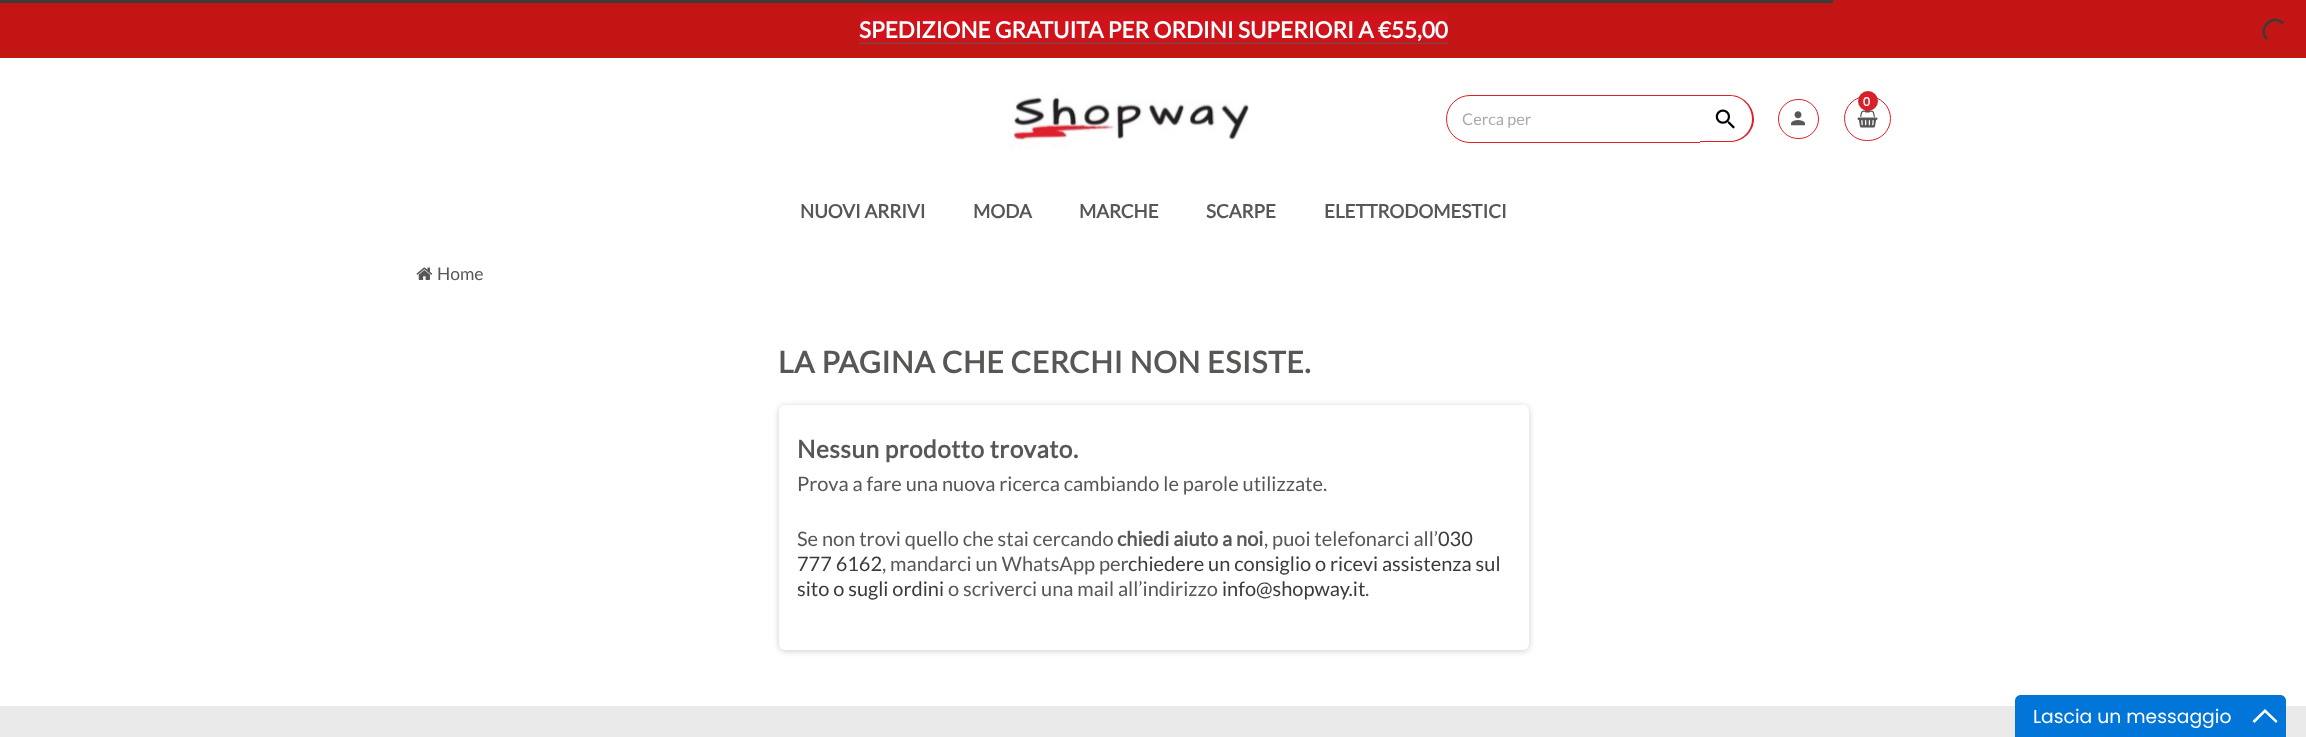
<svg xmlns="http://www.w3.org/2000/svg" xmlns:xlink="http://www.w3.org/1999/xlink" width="2306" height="737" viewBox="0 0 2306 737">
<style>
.cls-1{font:bold 22.5px Lato;fill:#ffffff}
.cls-2{font:16.25px Lato;fill:#ababab}
.cls-3{font:bold 12px Lato;fill:#ffffff}
.cls-4{font:bold 18.75px Lato;fill:#575756}
.cls-5{font:17.5px Lato;fill:#575756}
.cls-6{font:bold 30px Lato;letter-spacing:0.6px;fill:#575756}
.cls-7{font:bold 24.4px Lato;letter-spacing:0.5px;fill:#575756}
.cls-8{font:20px Lato;fill:#575756}
.cls-9{font:bold 20px Lato;fill:#575756}
.cls-10{font:20px Lato;fill:#3b3b3b}
.cls-11{font:18.75px Poppins;fill:#ffffff}
</style>
<rect width="100%" height="100%" fill="#ffffff"/>
<rect fill="#c41515" x="0" y="0" width="2306" height="58"/>
<rect fill="#3b3b3b" x="0" y="0" width="1833" height="3"/>
<path fill="none" stroke="#3b3b3b" stroke-width="2.5" d="M2267 39C2256.5 29 2272.5 13 2283 23.5"/>
<rect fill="#575756" x="859" y="43" width="589" height="1"/>
<rect fill="#d0121a" x="859" y="15" width="589" height="28"/>
<image xlink:href="image0.png" x="1010" y="94" width="239" height="55"/>
<rect fill="none" stroke="#de1f29" x="1446.5" y="95.5" width="306" height="47" rx="23.5"/>
<path fill="#ffffff" d="M1700 95H1730C1743.5 95 1754 105.5 1754 119C1754 132.5 1743.5 143 1730 143H1700Z"/>
<path fill="#de1f29" fill-rule="evenodd" d="M1700 95H1730C1743 95 1754 106 1754 119C1754 132 1743 142 1730 142H1700ZM1700 96H1730C1742 96 1752 106 1752 119C1752 131 1742 141 1730 141H1700Z"/>
<image xlink:href="image1.png" x="1715" y="109" width="20" height="20"/>
<rect fill="none" stroke="#de1f29" x="1778.5" y="99.5" width="40" height="39" rx="19.5"/>
<image xlink:href="image2.png" x="1791" y="111" width="14" height="15"/>
<rect fill="none" stroke="#de1f29" x="1844.5" y="96.5" width="46" height="44" rx="22"/>
<image xlink:href="image3.png" x="1857" y="110" width="21" height="18"/>
<circle fill="#d62228" cx="1868" cy="101" r="10"/>
<image xlink:href="image4.png" x="416" y="267" width="17" height="13"/>
<rect fill="#000000" fill-opacity="0.2" filter="blur(3px)" x="779" y="406" width="750" height="245" rx="6"/>
<rect fill="#ffffff" x="779" y="405" width="750" height="245" rx="6"/>
<rect fill="#eaeaea" x="0" y="706" width="2306" height="31"/>
<path fill="#0275d8" d="M2021 695H2280C2283.5 695 2286 697.5 2286 701V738H2015V701C2015 697.5 2017.5 695 2021 695Z"/>
<path fill="#ffffff" d="M2265 709L2277.5 721L2276 723L2265 712.5L2254.5 723L2252.5 721Z"/>
<text class="cls-1" x="859" y="38">SPEDIZIONE GRATUITA PER ORDINI SUPERIORI A €55,00</text>
<text class="cls-2" x="1462" y="125">Cerca per</text>
<text class="cls-3" x="1863" y="106">0</text>
<text class="cls-4" x="800" y="218">NUOVI ARRIVI</text>
<text class="cls-4" x="973" y="218">MODA</text>
<text class="cls-4" x="1079" y="218">MARCHE</text>
<text class="cls-4" x="1206" y="218">SCARPE</text>
<text class="cls-4" x="1324" y="218">ELETTRODOMESTICI</text>
<text class="cls-5" x="437" y="280">Home</text>
<text class="cls-6" x="778" y="373">LA PAGINA CHE CERCHI NON ESISTE.</text>
<text class="cls-7" x="797" y="458">Nessun prodotto trovato.</text>
<text class="cls-8" x="797" y="491">Prova a fare una nuova ricerca cambiando le parole utilizzate.</text>
<text class="cls-8" x="797" y="546">Se non trovi quello che stai cercando</text>
<text class="cls-9" x="1117" y="546">chiedi aiuto a noi</text>
<text class="cls-8" x="1264" y="546">, puoi telefonarci all’</text>
<text class="cls-10" x="1438" y="546">030</text>
<text class="cls-10" x="797" y="571">777 6162</text>
<text class="cls-8" x="882" y="571">, mandarci un WhatsApp per</text>
<text class="cls-10" x="1128" y="571">chiedere un consiglio o ricevi assistenza sul</text>
<text class="cls-10" x="797" y="596">sito o sugli ordini</text>
<text class="cls-8" x="948" y="596">o scriverci una mail all’indirizzo</text>
<text class="cls-10" x="1222" y="596">info@shopway.it</text>
<text class="cls-8" x="1365" y="596">.</text>
<text class="cls-11" x="2033" y="723">Lascia un messaggio</text>
</svg>
